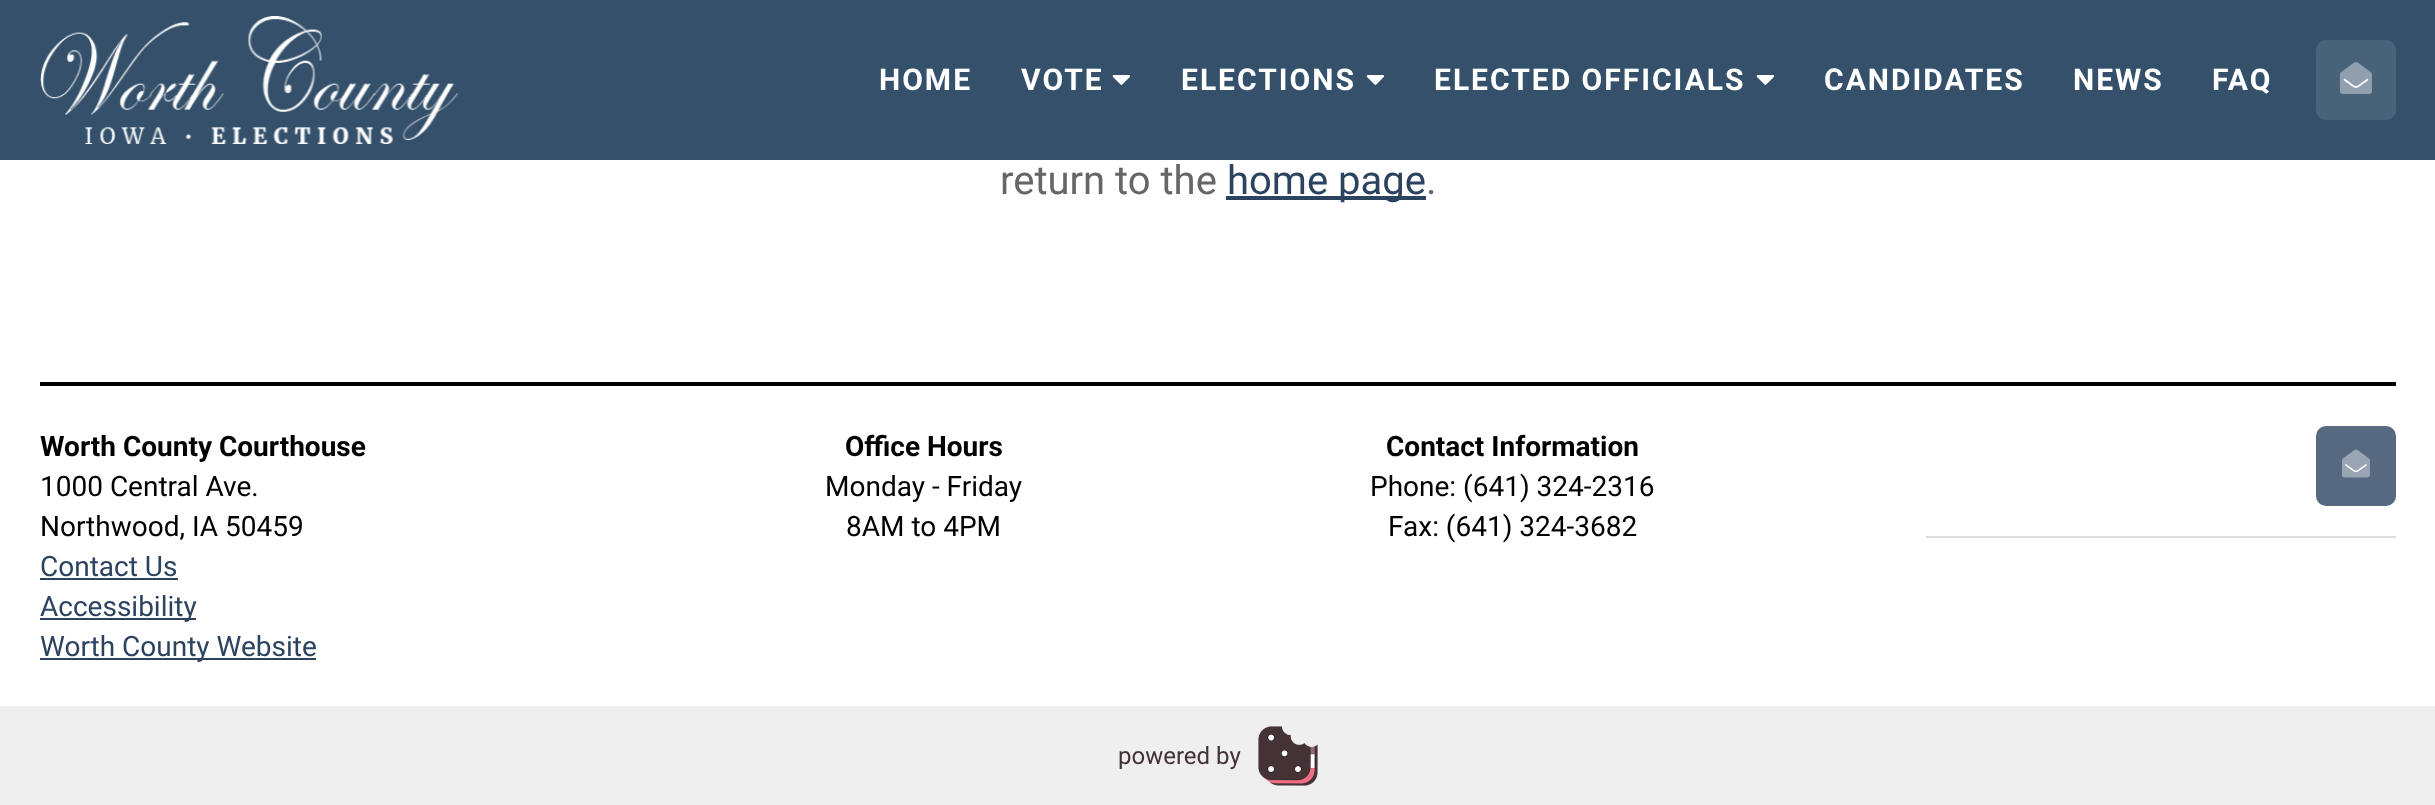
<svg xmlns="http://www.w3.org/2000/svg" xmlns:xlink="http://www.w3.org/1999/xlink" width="2435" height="805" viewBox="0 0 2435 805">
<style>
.cls-1{font:bold 30px Roboto;letter-spacing:2px;fill:#ffffff}
.cls-2{font:40px Roboto;fill:#666666}
.cls-3{font:40px Roboto;fill:#2c4360}
.cls-4{font:bold 28px Roboto;fill:#000000}
.cls-5{font:28px Roboto;fill:#000000}
.cls-6{font:28px Roboto;fill:#2c4360}
.cls-7{font:24px Roboto;fill:#413335}
</style>
<rect width="100%" height="100%" fill="#ffffff"/>
<rect fill="#34506a" x="0" y="0" width="2435" height="160"/>
<image xlink:href="image0.png" x="40" y="16" width="418" height="128"/>
<image xlink:href="image1.png" x="1112" y="75" width="19" height="10"/>
<image xlink:href="image1.png" x="1366" y="75" width="19" height="10"/>
<image xlink:href="image1.png" x="1756" y="75" width="19" height="10"/>
<rect fill="#486279" x="2316" y="40" width="80" height="80" rx="10"/>
<image xlink:href="image3.png" x="2343" y="78" width="26" height="10"/>
<image xlink:href="image2.png" x="2339" y="62" width="33" height="32"/>
<rect fill="#2c4360" x="1226" y="196" width="200" height="4"/>
<rect fill="#000000" x="40" y="382" width="2356" height="4"/>
<rect fill="#2c4360" x="40" y="578" width="138" height="2"/>
<rect fill="#2c4360" x="40" y="618" width="156" height="2"/>
<rect fill="#2c4360" x="40" y="658" width="276" height="2"/>
<rect fill="#566980" x="2316" y="426" width="80" height="80" rx="10"/>
<image xlink:href="image5.png" x="2345" y="464" width="22" height="9"/>
<image xlink:href="image4.png" x="2342" y="449" width="28" height="29"/>
<rect fill="#dddddd" x="1926" y="536" width="470" height="2"/>
<rect fill="#efefef" x="0" y="706" width="2435" height="99"/>
<image xlink:href="image6.png" x="1258" y="726" width="60" height="60"/>
<text class="cls-1" x="879" y="90">HOME</text>
<text class="cls-1" x="1021" y="90">VOTE</text>
<text class="cls-1" x="1181" y="90">ELECTIONS</text>
<text class="cls-1" x="1434" y="90">ELECTED OFFICIALS</text>
<text class="cls-1" x="1824" y="90">CANDIDATES</text>
<text class="cls-1" x="2073" y="90">NEWS</text>
<text class="cls-1" x="2212" y="90">FAQ</text>
<text class="cls-2" x="1000" y="194">return to the</text>
<text class="cls-3" x="1227" y="194">home page</text>
<text class="cls-2" x="1426" y="194">.</text>
<text class="cls-4" x="40" y="456">Worth County Courthouse</text>
<text class="cls-5"><tspan x="40" y="496">1000 Central Ave.</tspan><tspan x="40" y="536">Northwood, IA 50459</tspan></text>
<text class="cls-6"><tspan x="40" y="576">Contact Us</tspan><tspan x="40" y="616">Accessibility</tspan><tspan x="40" y="656">Worth County Website</tspan></text>
<text class="cls-4" x="845" y="456">Office Hours</text>
<text class="cls-5" x="825" y="496">Monday - Friday</text>
<text class="cls-5" x="846" y="536">8AM to 4PM</text>
<text class="cls-4" x="1386" y="456">Contact Information</text>
<text class="cls-5" x="1370" y="496">Phone: (641) 324-2316</text>
<text class="cls-5" x="1388" y="536">Fax: (641) 324-3682</text>
<text class="cls-7" x="1118" y="764">powered by</text>
</svg>
